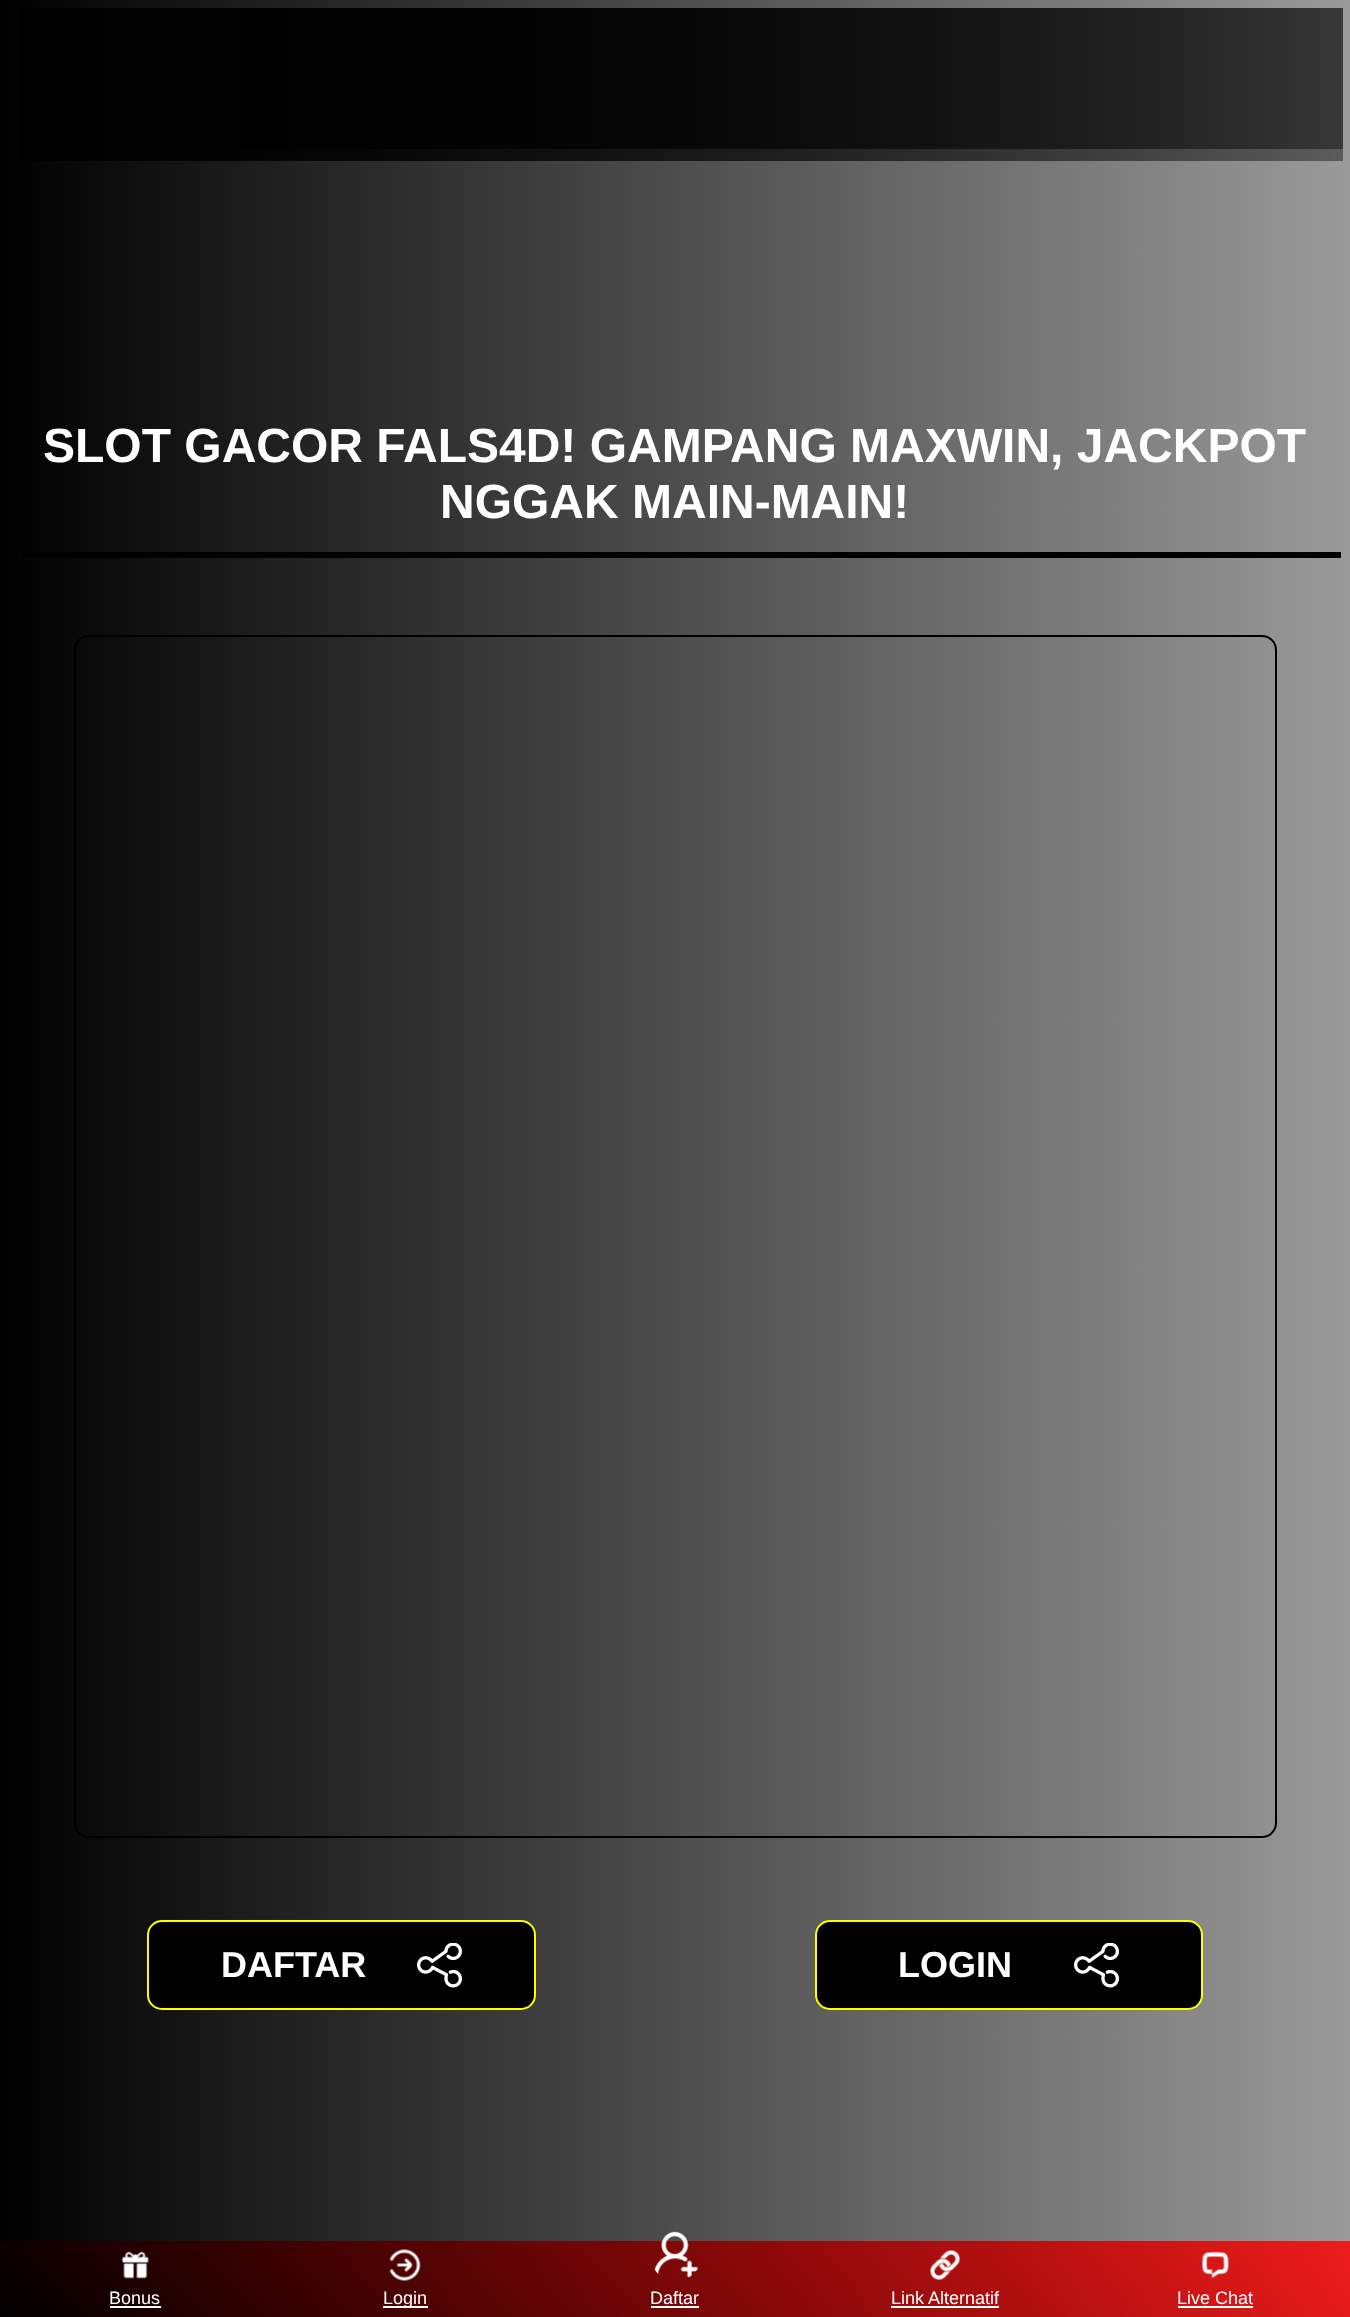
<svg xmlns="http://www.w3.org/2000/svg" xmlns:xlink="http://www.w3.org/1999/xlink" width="1350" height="2317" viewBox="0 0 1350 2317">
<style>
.cls-1{font:bold 48px Liberation Sans;fill:#ffffff}
.cls-2{font:bold 36px Liberation Sans;fill:#ffffff}
.cls-3{font:18px Liberation Sans;fill:#ffffff}
</style>
<defs>
<linearGradient id="g1" gradientUnits="userSpaceOnUse" x1="1350" y1="1159" x2="0" y2="1159"><stop offset="0" stop-color="#9a9a9a"/><stop offset="1" stop-color="#000000"/></linearGradient>
<linearGradient id="g2" gradientUnits="userSpaceOnUse" x1="1343" y1="84" x2="7.5" y2="84"><stop offset="0" stop-color="#000000" stop-opacity="0.4"/><stop offset="1" stop-color="#000000"/></linearGradient>
<linearGradient id="g3" gradientUnits="userSpaceOnUse" x1="1343" y1="78" x2="7.5" y2="78"><stop offset="0" stop-color="#000000" stop-opacity="0.4"/><stop offset="1" stop-color="#000000"/></linearGradient>
<linearGradient id="g4" gradientUnits="userSpaceOnUse" x1="318" y1="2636" x2="1032" y2="1923"><stop offset="0" stop-color="#000000"/><stop offset="1" stop-color="#ff0000" stop-opacity="0.82"/></linearGradient>
</defs>
<rect width="100%" height="100%" fill="#ffffff"/>
<rect fill="url(#g1)" x="0" y="0" width="1350" height="2317"/>
<rect fill="url(#g2)" x="22" y="8" width="1321" height="153"/>
<rect fill="url(#g3)" x="241" y="8" width="1102" height="141"/>
<rect fill="#000000" x="22" y="552" width="1319" height="6"/>
<rect fill="none" stroke="#000000" stroke-width="2" x="75" y="636" width="1201" height="1201" rx="14"/>
<rect fill="#000000" stroke="#fbff00" stroke-width="2" x="148" y="1921" width="387" height="88" rx="14"/>
<image xlink:href="image0.png" x="417" y="1943" width="45" height="45"/>
<rect fill="#000000" stroke="#fbff00" stroke-width="2" x="816" y="1921" width="386" height="88" rx="14"/>
<image xlink:href="image0.png" x="1074" y="1943" width="45" height="45"/>
<rect fill="url(#g4)" x="0" y="2241" width="1350" height="76"/>
<image xlink:href="image1.png" x="122" y="2251" width="27" height="28"/>
<rect fill="#ffffff" x="110" y="2306" width="51" height="2"/>
<image xlink:href="image2.png" x="389" y="2249" width="32" height="32"/>
<rect fill="#ffffff" x="383" y="2306" width="45" height="2"/>
<image xlink:href="image3.png" x="654" y="2231" width="44" height="47"/>
<rect fill="#ffffff" x="651" y="2306" width="48" height="2"/>
<image xlink:href="image4.png" x="930" y="2250" width="30" height="30"/>
<rect fill="#ffffff" x="891" y="2306" width="108" height="2"/>
<image xlink:href="image5.png" x="1202" y="2251" width="27" height="28"/>
<rect fill="#ffffff" x="1178" y="2306" width="75" height="2"/>
<text class="cls-1" x="43" y="462">SLOT GACOR FALS4D! GAMPANG MAXWIN, JACKPOT</text>
<text class="cls-1" x="440" y="518">NGGAK MAIN-MAIN!</text>
<text class="cls-2" x="221" y="1977">DAFTAR</text>
<text class="cls-2" x="898" y="1977">LOGIN</text>
<text class="cls-3" x="109" y="2304">Bonus</text>
<text class="cls-3" x="383" y="2304">Login</text>
<text class="cls-3" x="650" y="2304">Daftar</text>
<text class="cls-3" x="891" y="2304">Link Alternatif</text>
<text class="cls-3" x="1177" y="2304">Live Chat</text>
</svg>
